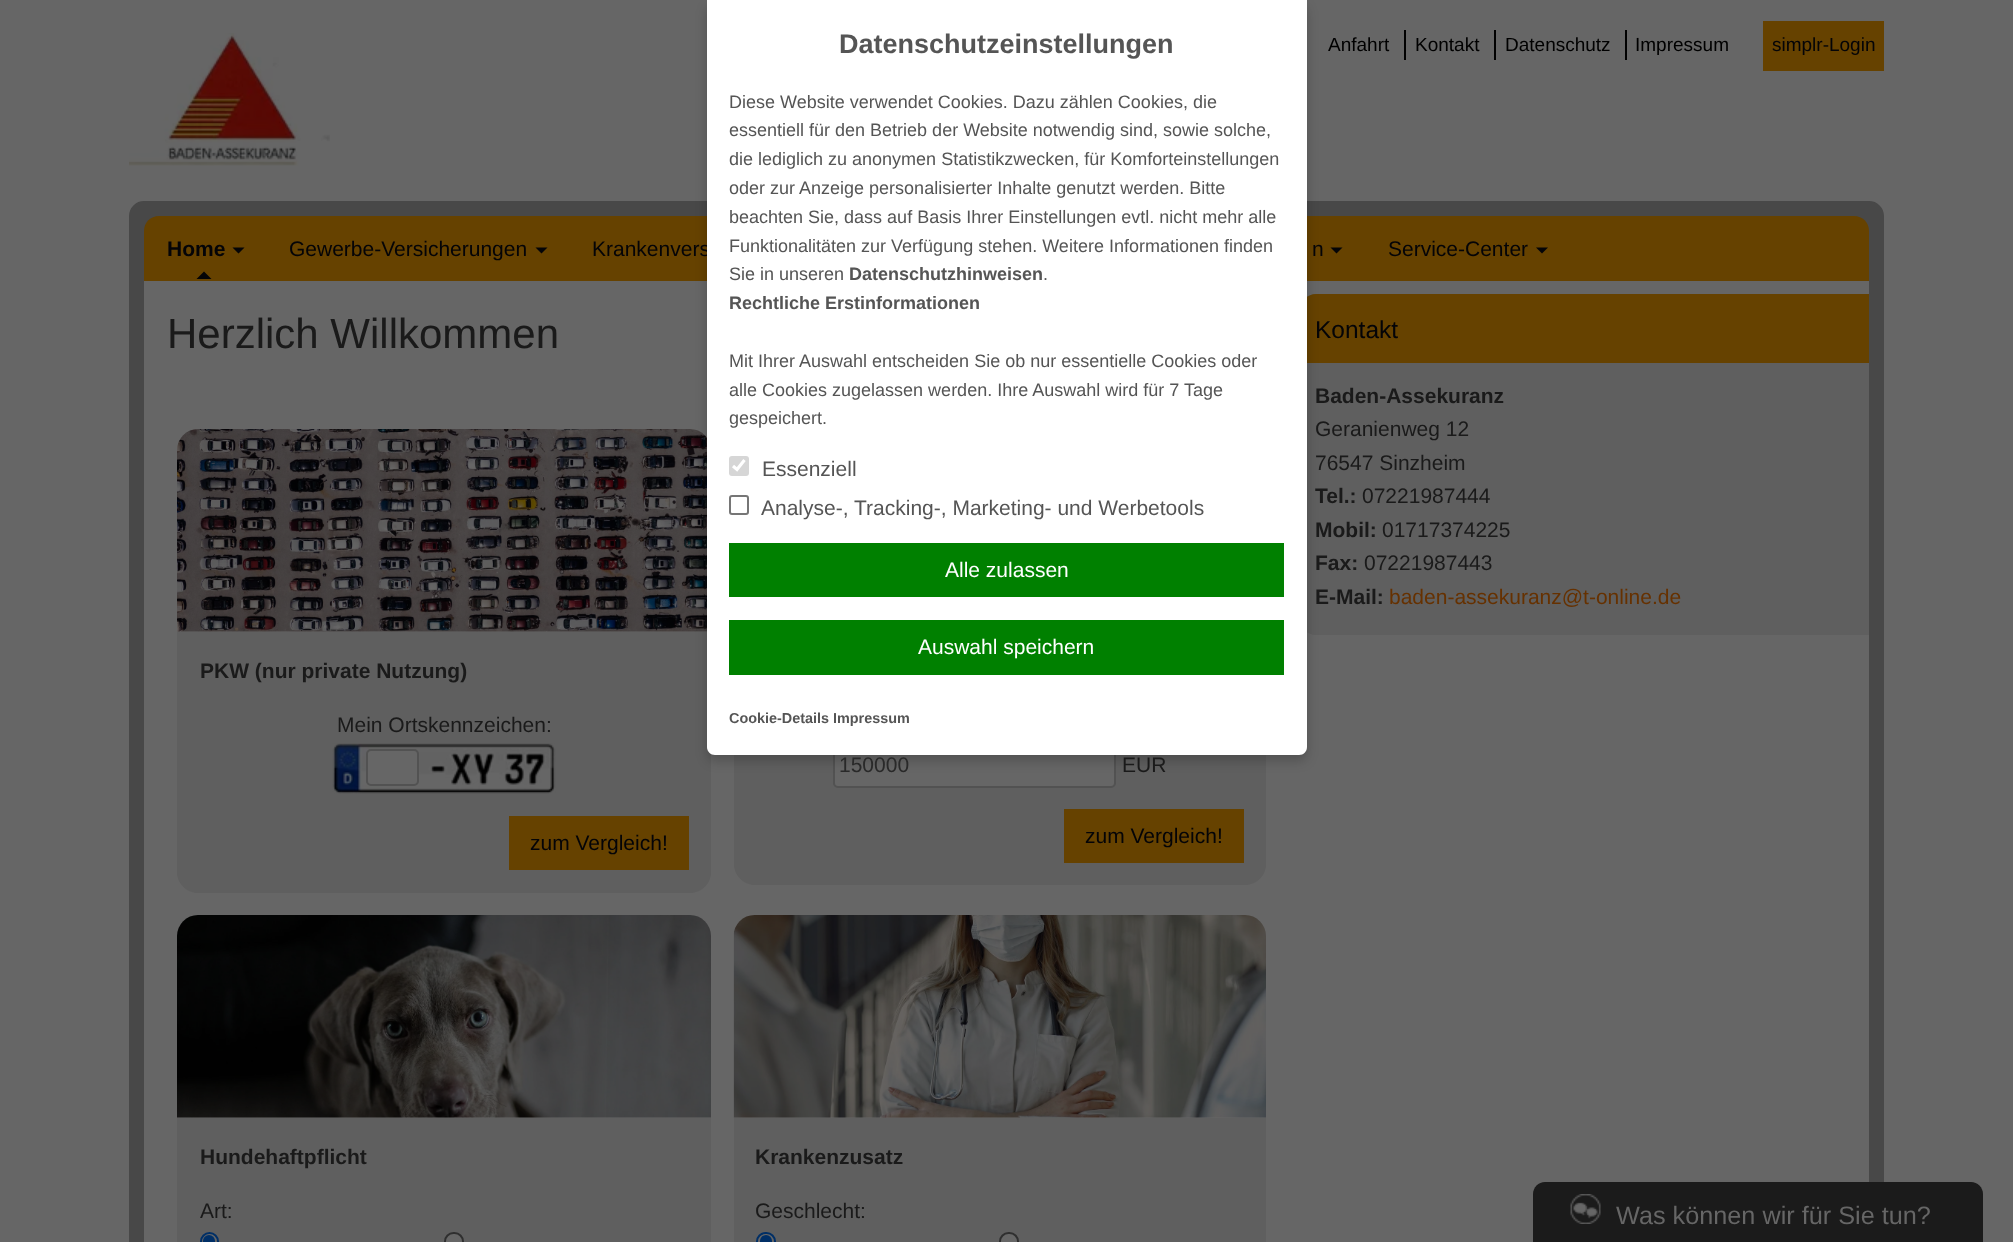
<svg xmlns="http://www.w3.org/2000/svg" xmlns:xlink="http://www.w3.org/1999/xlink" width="2013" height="1242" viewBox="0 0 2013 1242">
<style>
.cls-1{font:19px Liberation Sans;fill:#000000}
.cls-2{font:19px Liberation Sans;fill:#040407}
.cls-3{font:bold 21px Liberation Sans;fill:#040407}
.cls-4{font:21px Liberation Sans;fill:#040407}
.cls-5{font:bold 14.4px Liberation Sans;fill:#555555}
.cls-6{font:21px Liberation Sans;fill:#ffffff}
.cls-7{font:21px Liberation Sans;fill:#555555}
.cls-8{font:18px Liberation Sans;fill:#555555}
.cls-9{font:bold 18px Liberation Sans;fill:#555555}
.cls-10{font:bold 27px Liberation Sans;fill:#555555}
.cls-11{font:42px Liberation Sans;fill:#1a1a1a}
.cls-12{font:bold 21px Liberation Sans;fill:#1a1a1a}
.cls-13{font:21px Liberation Sans;fill:#1a1a1a}
.cls-14{font:21px Liberation Sans;fill:#292929}
.cls-15{font:24.5px Liberation Sans;fill:#040407}
.cls-16{font:21px Liberation Sans;fill:#663100}
.cls-17{font:25.25px Liberation Sans;fill:#666666}
</style>
<rect width="100%" height="100%" fill="#666666"/>
<rect fill="#484848" stroke="#484848" stroke-width="15" x="136.5" y="208.5" width="1740" height="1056" rx="7.5"/>
<path fill="#664200" d="M159 216H1854C1862.5 216 1869 222.5 1869 231V281H144V231C144 222.5 150.5 216 159 216Z"/>
<rect fill="#666666" x="144" y="281" width="1725" height="961"/>
<image xlink:href="image1.png" x="177" y="429" width="530" height="203"/>
<path fill="#5f5f5f" d="M177 632H711V872C711 883.5 701.5 893 690 893H198C186.5 893 177 883.5 177 872Z"/>
<path fill="#5f5f5f" d="M734 632H1266V864C1266 875.5 1256.5 885 1245 885H755C743.5 885 734 875.5 734 864Z"/>
<rect fill="#666666" stroke="#525252" stroke-width="2" x="834" y="744" width="281" height="43" rx="4"/>
<path fill="#5f5f5f" d="M1316 294H1869V635H1316C1307.5 635 1301 628.5 1301 620V309C1301 300.5 1307.5 294 1316 294Z"/>
<path fill="#664200" d="M1316 294H1869V363H1301V309C1301 300.5 1307.5 294 1316 294Z"/>
<rect fill="#000000" fill-opacity="0.2" filter="blur(6px)" x="707" y="6" width="600" height="755" rx="8"/>
<image xlink:href="image0.png" x="129" y="33" width="201" height="133"/>
<rect fill="#000000" x="1404" y="30" width="2" height="30"/>
<rect fill="#000000" x="1494" y="30" width="2" height="30"/>
<rect fill="#000000" x="1625" y="30" width="2" height="30"/>
<rect fill="#664200" x="1763" y="21" width="121" height="50"/>
<path fill="#040407" d="M232.5 247.5H244.5L238.5 253.5ZM211.5 279H196.5L204 271.5Z"/>
<path fill="#040407" d="M535.5 247.5H547.5L541.5 253.5Z"/>
<path fill="#040407" d="M1330.5 247.5H1342.5L1336.5 253.5Z"/>
<path fill="#040407" d="M1536 247.5H1548L1542 253.5Z"/>
<image xlink:href="image2.png" x="332" y="743" width="224" height="51"/>
<rect fill="#666666" stroke="#525252" stroke-width="2" x="367" y="750" width="51" height="35" rx="4"/>
<rect fill="#664200" x="509" y="816" width="180" height="54"/>
<rect fill="#664200" x="1064" y="809" width="180" height="54"/>
<image xlink:href="image3.png" x="177" y="915" width="534" height="203"/>
<rect fill="#5f5f5f" x="177" y="1118" width="534" height="124"/>
<circle fill="#666666" stroke="#002f66" stroke-width="2" cx="209.5" cy="1241.5" r="8.5"/>
<circle fill="#002f66" cx="209" cy="1241" r="6"/>
<rect fill="#666666" stroke="#2f2f2f" stroke-width="2" x="445" y="1233" width="18" height="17" rx="8.5"/>
<image xlink:href="image4.png" x="733" y="915" width="533" height="203"/>
<rect fill="#5f5f5f" x="734" y="1118" width="532" height="124"/>
<rect fill="#666666" stroke="#002f66" stroke-width="2" x="757" y="1233" width="18" height="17" rx="8.5"/>
<circle fill="#002f66" cx="766" cy="1241" r="6"/>
<rect fill="#666666" stroke="#2f2f2f" stroke-width="2" x="1000" y="1233" width="18" height="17" rx="8.5"/>
<path fill="#1b1b1b" d="M1545 1182H1971C1977.5 1182 1983 1187.5 1983 1194V1242H1533V1194C1533 1187.5 1538.5 1182 1545 1182Z"/>
<image xlink:href="image5.png" x="1570" y="1194" width="31" height="30"/>
<text class="cls-1" x="1328" y="51">Anfahrt</text>
<text class="cls-1" x="1415" y="51">Kontakt</text>
<text class="cls-1" x="1505" y="51">Datenschutz</text>
<text class="cls-1" x="1635" y="51">Impressum</text>
<text class="cls-2" x="1772" y="51">simplr-Login</text>
<text class="cls-3" x="167" y="256">Home</text>
<text class="cls-4" x="289" y="256">Gewerbe-Versicherungen</text>
<text class="cls-4" x="592" y="256">Krankenvers</text>
<path fill="#ffffff" d="M707 0H1307V747C1307 751.5 1303.5 755 1299 755H715C710.5 755 707 751.5 707 747Z"/>
<text class="cls-5" x="729" y="723">Cookie-Details Impressum</text>
<rect fill="#008000" x="729" y="620" width="555" height="55"/>
<text class="cls-6" x="918" y="654">Auswahl speichern</text>
<rect fill="#008000" x="729" y="543" width="555" height="54"/>
<text class="cls-6" x="945" y="577">Alle zulassen</text>
<text class="cls-7" x="761" y="515">Analyse-, Tracking-, Marketing- und Werbetools</text>
<rect fill="none" stroke="#767676" stroke-width="2" x="730" y="496" width="18" height="18" rx="2"/>
<text class="cls-7" x="762" y="476">Essenziell</text>
<rect fill="#d6d6d6" x="729" y="456" width="20" height="20" rx="3"/>
<path fill="none" stroke="#ffffff" stroke-width="3.1" d="M733 466L737 469.5L744.5 460"/>
<text class="cls-8" x="729" y="424">gespeichert.</text>
<text class="cls-8" x="729" y="396">alle Cookies zugelassen werden. Ihre Auswahl wird für 7 Tage</text>
<text class="cls-8" x="729" y="367">Mit Ihrer Auswahl entscheiden Sie ob nur essentielle Cookies oder</text>
<text class="cls-9" x="729" y="309">Rechtliche Erstinformationen</text>
<text class="cls-8" x="1043" y="280">.</text>
<text class="cls-9" x="849" y="280">Datenschutzhinweisen</text>
<text class="cls-8" x="729" y="280">Sie in unseren</text>
<text class="cls-8" x="729" y="252">Funktionalitäten zur Verfügung stehen. Weitere Informationen finden</text>
<text class="cls-8" x="729" y="223">beachten Sie, dass auf Basis Ihrer Einstellungen evtl. nicht mehr alle</text>
<text class="cls-8" x="729" y="194">oder zur Anzeige personalisierter Inhalte genutzt werden. Bitte</text>
<text class="cls-8" x="729" y="165">die lediglich zu anonymen Statistikzwecken, für Komforteinstellungen</text>
<text class="cls-8" x="729" y="136">essentiell für den Betrieb der Website notwendig sind, sowie solche,</text>
<text class="cls-8" x="729" y="108">Diese Website verwendet Cookies. Dazu zählen Cookies, die</text>
<text class="cls-10" x="839" y="53">Datenschutzeinstellungen</text>
<text class="cls-4" x="1312" y="256">n</text>
<text class="cls-4" x="1388" y="256">Service-Center</text>
<text class="cls-11" x="167" y="348">Herzlich Willkommen</text>
<text class="cls-12" x="200" y="678">PKW (nur private Nutzung)</text>
<text class="cls-13" x="337" y="732">Mein Ortskennzeichen:</text>
<text class="cls-4" x="530" y="850">zum Vergleich!</text>
<text class="cls-14" x="839" y="772">150000</text>
<text class="cls-13" x="1122" y="772">EUR</text>
<text class="cls-4" x="1085" y="843">zum Vergleich!</text>
<text class="cls-12" x="200" y="1164">Hundehaftpflicht</text>
<text class="cls-13" x="200" y="1218">Art:</text>
<text class="cls-12" x="755" y="1164">Krankenzusatz</text>
<text class="cls-13" x="755" y="1218">Geschlecht:</text>
<text class="cls-15" x="1315" y="338">Kontakt</text>
<text class="cls-12" x="1315" y="403">Baden-Assekuranz</text>
<text class="cls-13"><tspan x="1315" y="436">Geranienweg 12</tspan><tspan x="1315" y="470">76547 Sinzheim</tspan></text>
<text class="cls-12" x="1315" y="503">Tel.:</text>
<text class="cls-13" x="1362" y="503">07221987444</text>
<text class="cls-12" x="1315" y="537">Mobil:</text>
<text class="cls-13" x="1382" y="537">01717374225</text>
<text class="cls-12" x="1315" y="570">Fax:</text>
<text class="cls-13" x="1364" y="570">07221987443</text>
<text class="cls-12" x="1315" y="604">E-Mail:</text>
<text class="cls-16" x="1389" y="604">baden-assekuranz@t-online.de</text>
<text class="cls-17" x="1616" y="1224">Was können wir für Sie tun?</text>
</svg>
